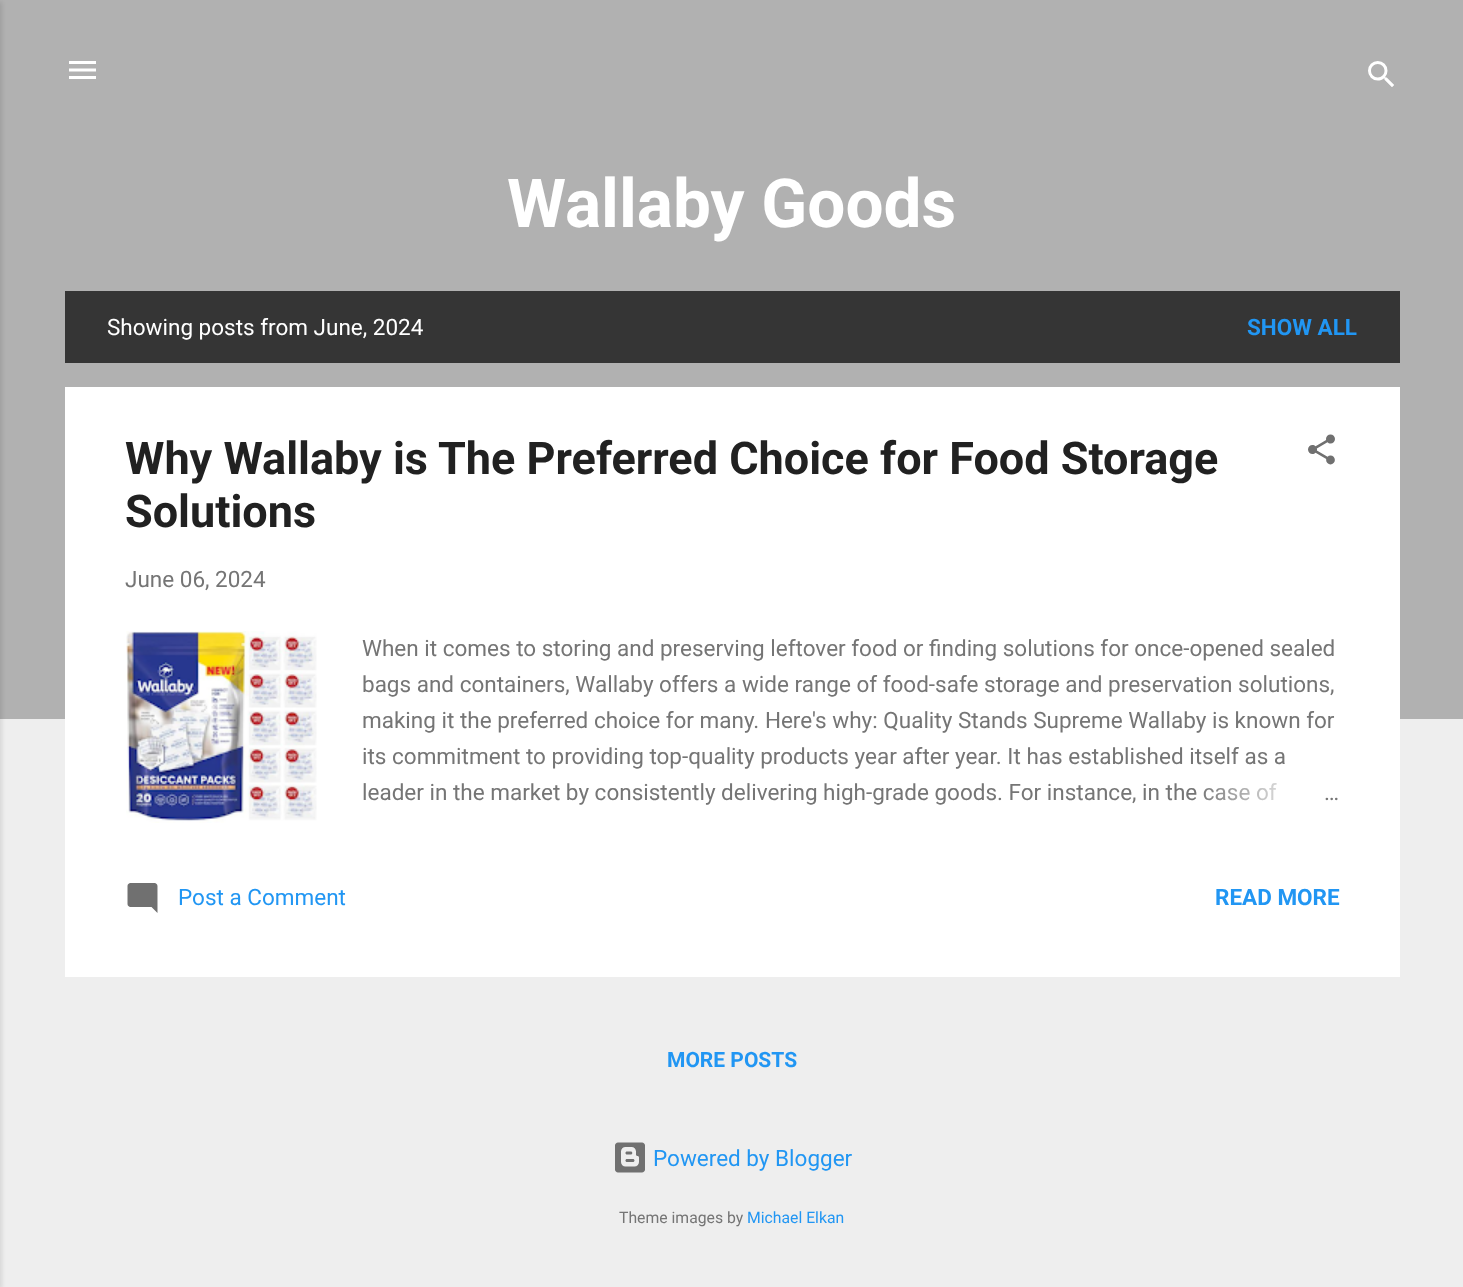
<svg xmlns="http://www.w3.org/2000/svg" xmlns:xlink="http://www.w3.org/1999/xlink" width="1463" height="1287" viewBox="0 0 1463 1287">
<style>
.cls-1{font:bold 67.5px Roboto;fill:#ffffff}
.cls-2{font:22.5px Roboto;fill:#ffffff}
.cls-3{font:bold 22.5px Roboto;fill:#2196f3}
.cls-4{font:bold 45px Roboto;fill:#212121}
.cls-5{font:22.5px Roboto;fill:#757575}
.cls-6{font:22.5px Roboto;fill:#2196f3}
.cls-7{font:bold 21px Roboto;fill:#2196f3}
.cls-8{font:15.75px Roboto;fill:#757575}
.cls-9{font:15.75px Roboto;fill:#2196f3}
</style>
<defs>
<linearGradient id="g1" gradientUnits="userSpaceOnUse" x1="1340" y1="794" x2="1196" y2="794"><stop offset="0" stop-color="#ffffff"/><stop offset="0.2" stop-color="#ffffff"/><stop offset="1" stop-color="#ffffff" stop-opacity="0"/></linearGradient>
</defs>
<rect width="100%" height="100%" fill="#eeeeee"/>
<rect fill="#b1b1b1" x="0" y="0" width="1463" height="719"/>
<rect fill="#000000" fill-opacity="0.1" filter="blur(2px)" x="-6" y="2" width="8" height="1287"/>
<image xlink:href="image0.png" x="69" y="61" width="27" height="18"/>
<image xlink:href="image1.png" x="1368" y="61" width="26" height="26"/>
<rect fill="#353535" x="65" y="291" width="1335" height="72"/>
<rect fill="#ffffff" x="65" y="387" width="1335" height="590"/>
<image xlink:href="image2.png" x="1308" y="434" width="27" height="31"/>
<image xlink:href="image3.png" x="126" y="631" width="191" height="192"/>
<image xlink:href="image4.png" x="127" y="883" width="31" height="30"/>
<image xlink:href="image5.png" x="615" y="1142" width="30" height="31"/>
<text class="cls-1" x="507" y="227">Wallaby Goods</text>
<text class="cls-2" x="107" y="335">Showing posts from June, 2024</text>
<text class="cls-3" x="1247" y="335">SHOW ALL</text>
<text class="cls-4"><tspan x="125" y="474">Why Wallaby is The Preferred Choice for Food Storage</tspan><tspan x="125" y="527">Solutions</tspan></text>
<text class="cls-5" x="125" y="587">June 06, 2024</text>
<text class="cls-5"><tspan x="362" y="656">When it comes to storing and preserving leftover food or finding solutions for once-opened sealed</tspan><tspan x="362" y="692">bags and containers, Wallaby offers a wide range of food-safe storage and preservation solutions,</tspan><tspan x="362" y="728">making it the preferred choice for many. Here's why: Quality Stands Supreme Wallaby is known for</tspan><tspan x="362" y="764">its commitment to providing top-quality products year after year. It has established itself as a</tspan><tspan x="362" y="800">leader in the market by consistently delivering high-grade goods. For instance, in the case of</tspan></text>
<rect fill="url(#g1)" x="1203" y="782" width="74" height="19"/>
<text class="cls-5" x="1324" y="800">…</text>
<text class="cls-6" x="178" y="905">Post a Comment</text>
<text class="cls-3" x="1215" y="905">READ MORE</text>
<text class="cls-7" x="667" y="1067">MORE POSTS</text>
<text class="cls-6" x="653" y="1166">Powered by Blogger</text>
<text class="cls-8" x="619" y="1223">Theme images by</text>
<text class="cls-9" x="747" y="1223">Michael Elkan</text>
</svg>
